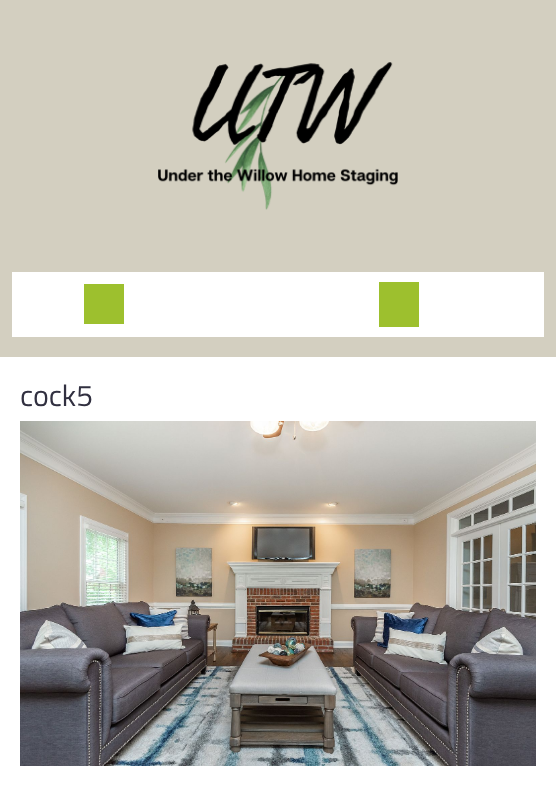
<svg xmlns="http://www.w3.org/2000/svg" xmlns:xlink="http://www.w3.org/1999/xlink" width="556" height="794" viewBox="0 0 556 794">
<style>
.cls-1{font:30px Titillium Web;fill:#313040}
</style>
<rect width="100%" height="100%" fill="#ffffff"/>
<rect fill="#d3cfc0" x="0" y="0" width="556" height="357"/>
<image xlink:href="image0.png" x="158" y="62" width="240" height="148"/>
<rect fill="#ffffff" x="12" y="272" width="532" height="65"/>
<rect fill="#9dc02e" x="84" y="284" width="40" height="40"/>
<rect fill="#9dc02e" x="379" y="282" width="40" height="45"/>
<image xlink:href="image1.png" x="20" y="421" width="516" height="345"/>
<text class="cls-1" x="20" y="406">cock5</text>
</svg>
